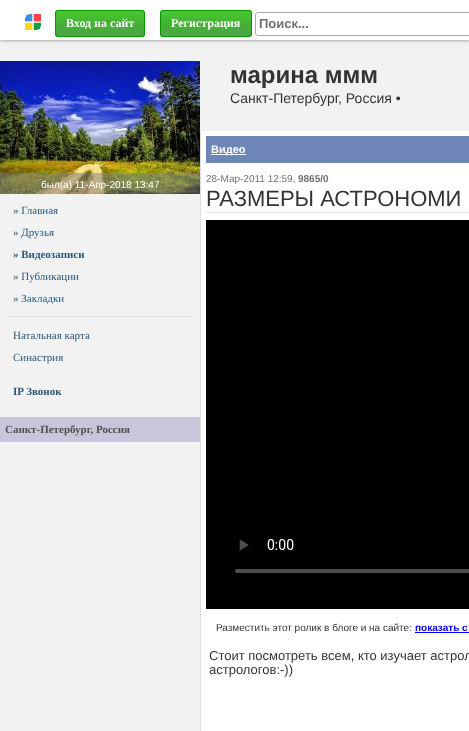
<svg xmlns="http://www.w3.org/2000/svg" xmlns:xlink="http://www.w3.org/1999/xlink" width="469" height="731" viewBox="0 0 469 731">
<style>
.cls-1{font:bold 12px Liberation Serif;fill:#ffffff}
.cls-2{font:bold 13px Liberation Sans;fill:#707070}
.cls-3{font:bold 24px Liberation Sans;fill:#333333}
.cls-4{font:14px Liberation Sans;fill:#333333}
.cls-5{font:10px Liberation Sans;fill:#ffffff}
.cls-6{font:11px Liberation Serif;fill:#2b587a}
.cls-7{font:bold 11px Liberation Serif;fill:#2b587a}
.cls-8{font:bold 11px Liberation Serif;fill:#535151}
.cls-9{font:bold 11px Liberation Sans;fill:#ffffff}
.cls-10{font:10px Liberation Sans;fill:#707070}
.cls-11{font:bold 10px Liberation Sans;fill:#707070}
.cls-12{font:22px Liberation Sans;fill:#333333}
.cls-13{font:10px Liberation Sans;fill:#333333}
.cls-14{font:bold 10px Liberation Sans;fill:#0000ff}
.cls-15{font:13px Liberation Sans;fill:#333333}
</style>
<rect width="100%" height="100%" fill="#f2f2f2"/>
<rect fill="#aaaaaa" filter="blur(1.5px)" x="0" y="1" width="469" height="40"/>
<rect fill="#ffffff" x="0" y="0" width="469" height="40"/>
<image xlink:href="image0.png" x="25" y="14" width="16" height="16"/>
<image xlink:href="image1.png" x="55" y="10" width="90" height="27"/>
<rect fill="none" stroke="#009900" x="55.5" y="10.5" width="89" height="26" rx="2.5"/>
<image xlink:href="image2.png" x="160" y="10" width="92" height="27"/>
<rect fill="none" stroke="#009900" x="160.5" y="10.5" width="91" height="26" rx="2.5"/>
<rect fill="none" stroke="#aaaaaa" x="255.5" y="12.5" width="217" height="23" rx="2.5"/>
<rect fill="#eeeeee" x="200" y="130" width="269" height="1"/>
<image xlink:href="image3.png" x="0" y="61" width="200" height="133"/>
<rect fill="#808080" fill-opacity="0.5" x="0" y="173" width="200" height="21"/>
<rect fill="#dae1e8" x="7" y="316" width="186" height="1"/>
<rect fill="#c9c5db" x="0" y="417" width="200" height="25"/>
<rect fill="#ffffff" x="201" y="131" width="268" height="600"/>
<rect fill="#dddddd" x="200" y="131" width="1" height="600"/>
<rect fill="#6d86b7" x="206" y="136" width="263" height="27"/>
<rect fill="#ffffff" x="211" y="154" width="35" height="1"/>
<rect fill="#dae1e8" x="206" y="212" width="263" height="1"/>
<rect fill="#000000" x="206" y="220" width="263" height="389"/>
<image xlink:href="image4.png" x="235" y="539" width="234" height="34"/>
<rect fill="#0000ff" x="415" y="632" width="54" height="1"/>
<text class="cls-1" x="66" y="27">Вход на сайт</text>
<text class="cls-1" x="171" y="27">Регистрация</text>
<text class="cls-2" x="259" y="28">Поиск...</text>
<text class="cls-3" x="230" y="83">марина ммм</text>
<text class="cls-4" x="230" y="103">Санкт-Петербург, Россия •</text>
<text class="cls-5" x="41" y="188">был(а) 11-Апр-2018 13:47</text>
<text class="cls-6" x="13" y="214">» Главная</text>
<text class="cls-6" x="13" y="236">» Друзья</text>
<text class="cls-7" x="13" y="258">» Видеозаписи</text>
<text class="cls-6" x="13" y="280">» Публикации</text>
<text class="cls-6" x="13" y="302">» Закладки</text>
<text class="cls-6" x="13" y="339">Натальная карта</text>
<text class="cls-6" x="13" y="361">Синастрия</text>
<text class="cls-7" x="13" y="395">IP Звонок</text>
<text class="cls-8" x="5" y="433">Санкт-Петербург, Россия</text>
<text class="cls-9" x="211" y="153">Видео</text>
<text class="cls-10" x="206" y="182">28-Мар-2011 12:59,</text>
<text class="cls-11" x="298" y="182">9865/0</text>
<text class="cls-12" x="206" y="206">РАЗМЕРЫ АСТРОНОМИ</text>
<text class="cls-13" x="216" y="631">Разместить этот ролик в блоге и на сайте:</text>
<text class="cls-14" x="415" y="631">показать с</text>
<text class="cls-15"><tspan x="209" y="660">Стоит посмотреть всем, кто изучает астрол</tspan><tspan x="209" y="674">астрологов:-))</tspan></text>
</svg>
